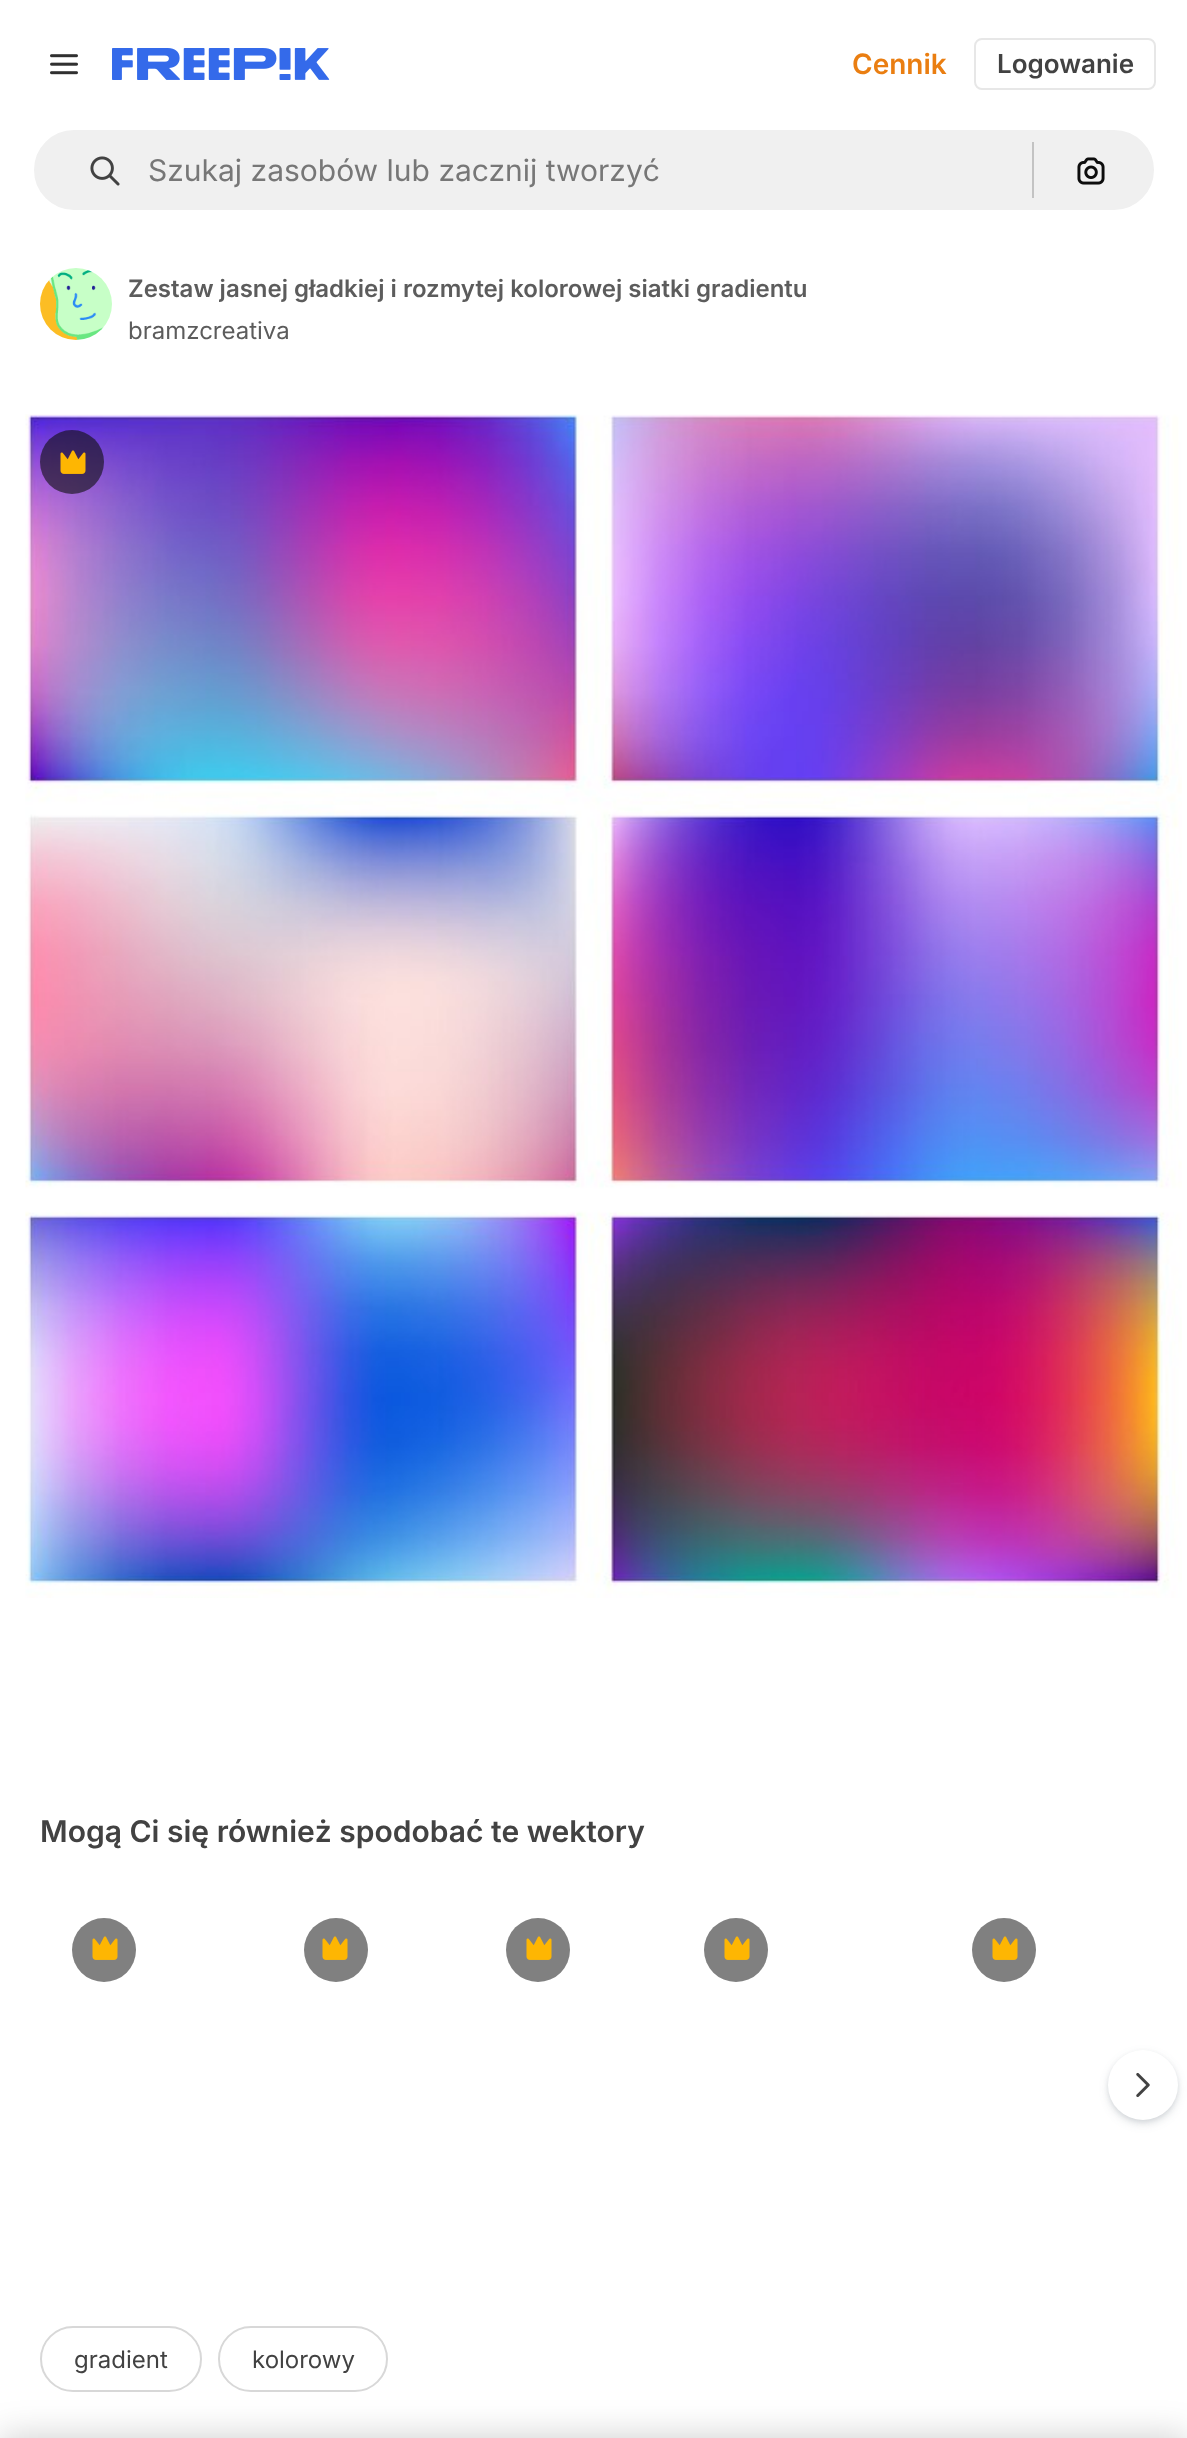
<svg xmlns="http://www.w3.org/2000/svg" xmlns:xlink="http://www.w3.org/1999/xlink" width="1187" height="2438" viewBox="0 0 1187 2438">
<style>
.cls-1{font:600 28px Inter;fill:#ea7e11}
.cls-2{font:600 26px Inter;fill:#424242}
.cls-3{font:30px Inter;fill:#777777}
.cls-4{font:600 24px Inter;fill:#5c5c5c}
.cls-5{font:24px Inter;fill:#5c5c5c}
.cls-6{font:600 30px Inter;fill:#424242}
.cls-7{font:24px Inter;fill:#424242}
</style>
<rect width="100%" height="100%" fill="#ffffff"/>
<image xlink:href="image0.png" x="50" y="54" width="28" height="21"/>
<image xlink:href="image1.png" x="112" y="48" width="218" height="32"/>
<rect fill="none" stroke="#e7e7e7" stroke-width="2" x="975" y="39" width="180" height="50" rx="7"/>
<rect fill="#f0f0f0" stroke="#ffffff" stroke-width="2" x="33" y="129" width="1122" height="82" rx="41"/>
<image xlink:href="image2.png" x="90" y="156" width="30" height="30"/>
<rect fill="#c3c3c3" x="1032" y="142" width="2" height="56"/>
<image xlink:href="image3.png" x="1077" y="157" width="28" height="28"/>
<image xlink:href="image4.png" x="40" y="268" width="72" height="72"/>
<image xlink:href="image5.png" x="25" y="414" width="1157" height="1184"/>
<circle fill="#0d0d0d" fill-opacity="0.6" cx="72" cy="462" r="32"/>
<image xlink:href="image6.png" x="60" y="450" width="26" height="24"/>
<circle fill="#808080" cx="104" cy="1950" r="32"/>
<image xlink:href="image7.png" x="92" y="1936" width="26" height="24"/>
<circle fill="#808080" cx="336" cy="1950" r="32"/>
<image xlink:href="image7.png" x="322" y="1936" width="26" height="24"/>
<circle fill="#808080" cx="538" cy="1950" r="32"/>
<image xlink:href="image7.png" x="526" y="1936" width="26" height="24"/>
<circle fill="#808080" cx="736" cy="1950" r="32"/>
<image xlink:href="image7.png" x="724" y="1936" width="26" height="24"/>
<circle fill="#808080" cx="1004" cy="1950" r="32"/>
<image xlink:href="image7.png" x="992" y="1936" width="26" height="24"/>
<rect fill="#374957" fill-opacity="0.15" filter="blur(5px)" x="1108" y="2054" width="70" height="70" rx="35"/>
<rect fill="#374957" fill-opacity="0.1" filter="blur(2px)" x="1108" y="2052" width="70" height="70" rx="35"/>
<circle fill="#ffffff" cx="1143" cy="2085" r="35"/>
<image xlink:href="image8.png" x="1136" y="2072" width="14" height="26"/>
<rect fill="none" stroke="#d8d8d8" stroke-width="2" x="41" y="2327" width="160" height="64" rx="32"/>
<rect fill="none" stroke="#d8d8d8" stroke-width="2" x="219" y="2327" width="168" height="64" rx="32"/>
<rect fill="#000000" fill-opacity="0.2" filter="blur(18px)" x="0" y="2438" width="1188" height="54"/>
<text class="cls-1" x="852" y="74">Cennik</text>
<text class="cls-2" x="997" y="73">Logowanie</text>
<text class="cls-3" x="148" y="181">Szukaj zasobów lub zacznij tworzyć</text>
<text class="cls-4" x="128" y="297">Zestaw jasnej gładkiej i rozmytej kolorowej siatki gradientu</text>
<text class="cls-5" x="128" y="339">bramzcreativa</text>
<text class="cls-6" x="40" y="1842">Mogą Ci się również spodobać te wektory</text>
<text class="cls-7" x="74" y="2368">gradient</text>
<text class="cls-7" x="252" y="2368">kolorowy</text>
</svg>
